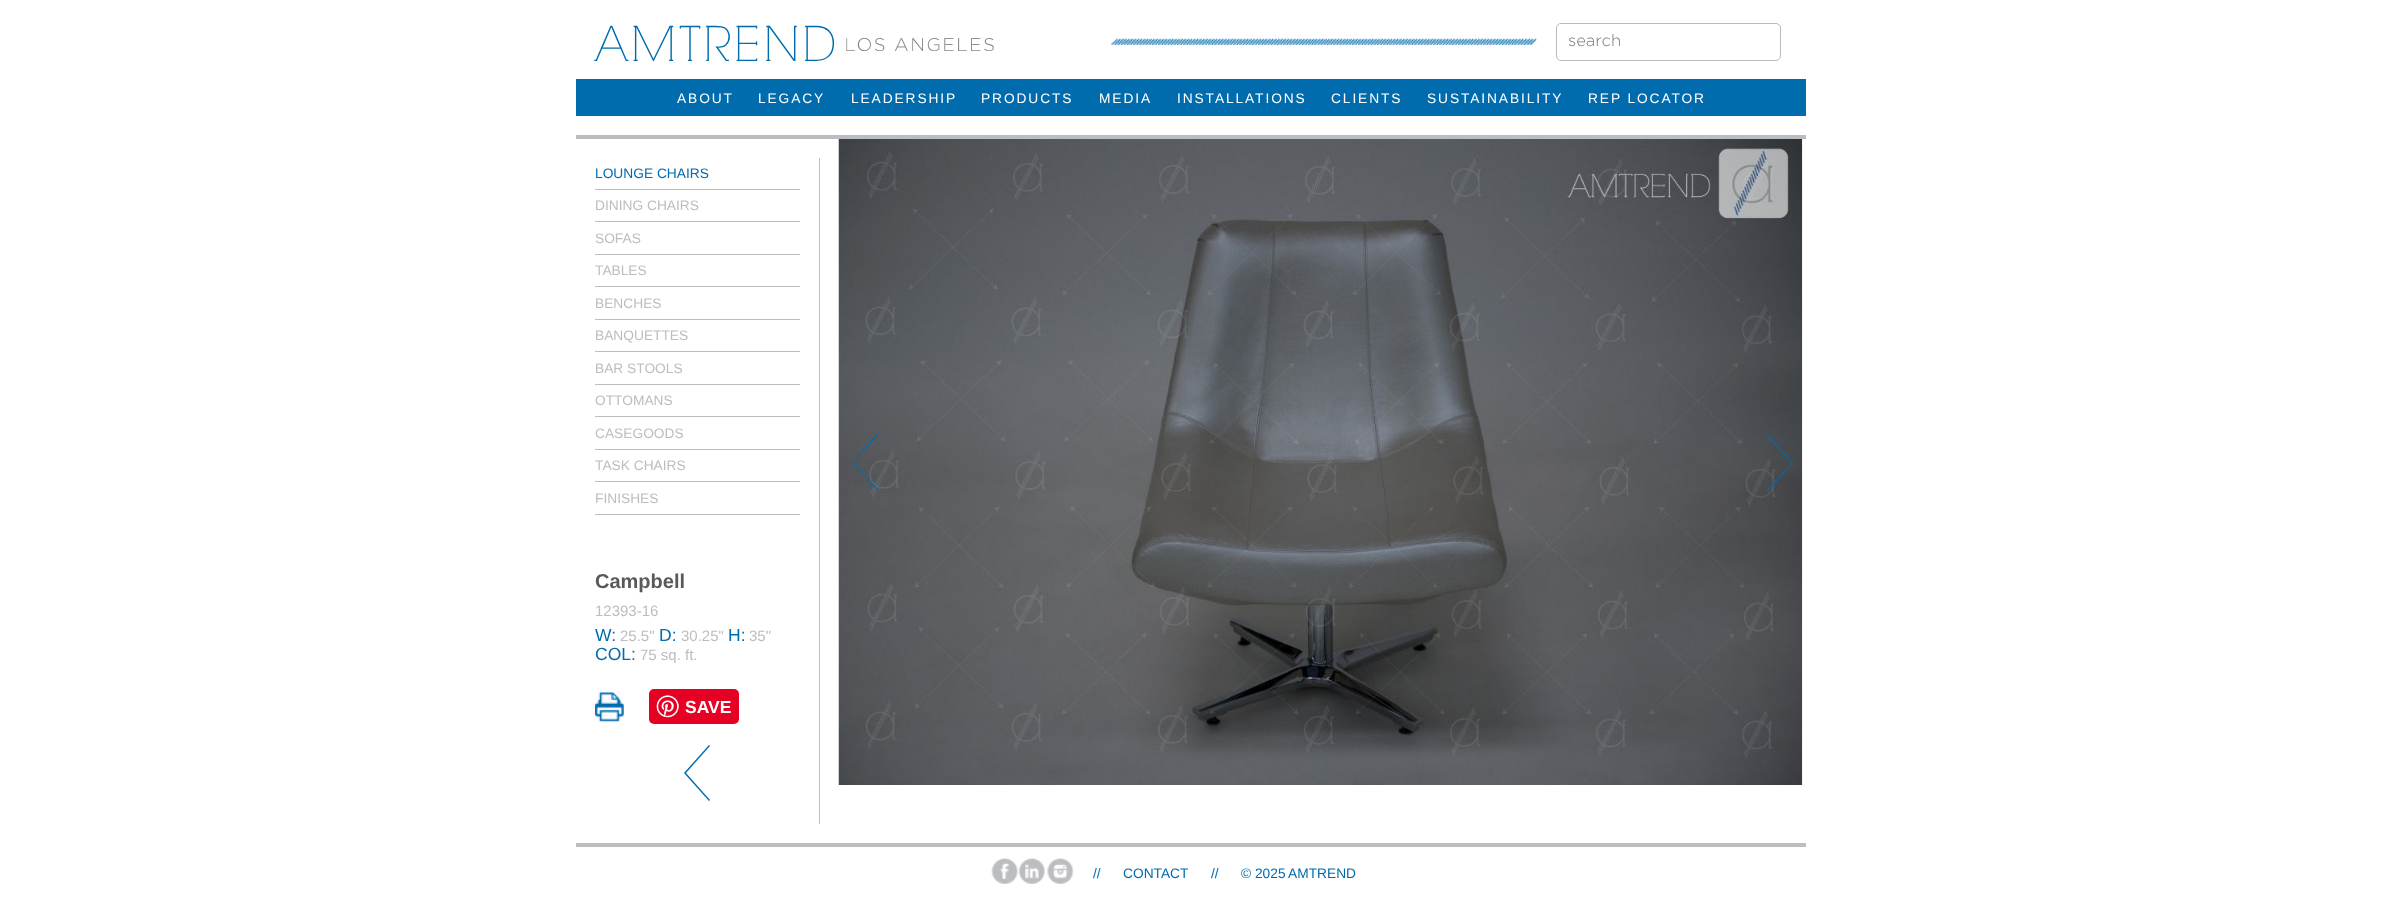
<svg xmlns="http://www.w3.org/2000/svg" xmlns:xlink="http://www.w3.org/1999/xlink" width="2382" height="909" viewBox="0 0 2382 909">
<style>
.cls-1{font:300 47.5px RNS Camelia;letter-spacing:3.75px;fill:#006cae}
.cls-2{font:300 16.5px Gotham;fill:#757575}
.cls-3{font:13.75px Liberation Sans;letter-spacing:1.9px;fill:#ffffff}
.cls-4{font:13.75px Liberation Sans;fill:#006cae}
.cls-5{font:13.75px Liberation Sans;fill:#bcbdc0}
.cls-6{font:bold 20px Liberation Sans;fill:#58595b}
.cls-7{font:15px Liberation Sans;fill:#bcbdc0}
.cls-8{font:17.5px Liberation Sans;fill:#006cae}
.cls-9{font:bold 17.5px Liberation Sans;fill:#ffffff}
</style>
<rect width="100%" height="100%" fill="#ffffff"/>
<image xlink:href="image0.png" x="846" y="38" width="148" height="14"/>
<image xlink:href="image1.png" x="1123" y="38" width="401" height="7"/>
<image xlink:href="image2.png" x="1111" y="38" width="13" height="7"/>
<image xlink:href="image3.png" x="1523" y="38" width="14" height="7"/>
<rect fill="none" stroke="#b9babd" x="1556.5" y="23.5" width="224" height="37" rx="4.5"/>
<rect fill="#006cae" x="576" y="79" width="1230" height="37"/>
<rect fill="#bcbdc0" x="576" y="135" width="1230" height="4"/>
<rect fill="#bcbdc0" x="576" y="843" width="1230" height="4"/>
<rect fill="#bcbdc0" x="819" y="158" width="1" height="666"/>
<rect fill="#bcbdc0" x="595" y="189" width="205" height="1"/>
<rect fill="#bcbdc0" x="595" y="221" width="205" height="1"/>
<rect fill="#bcbdc0" x="595" y="254" width="205" height="1"/>
<rect fill="#bcbdc0" x="595" y="286" width="205" height="1"/>
<rect fill="#bcbdc0" x="595" y="319" width="205" height="1"/>
<rect fill="#bcbdc0" x="595" y="351" width="205" height="1"/>
<rect fill="#bcbdc0" x="595" y="384" width="205" height="1"/>
<rect fill="#bcbdc0" x="595" y="416" width="205" height="1"/>
<rect fill="#bcbdc0" x="595" y="449" width="205" height="1"/>
<rect fill="#bcbdc0" x="595" y="481" width="205" height="1"/>
<rect fill="#bcbdc0" x="595" y="514" width="205" height="1"/>
<image xlink:href="image4.png" x="595" y="692" width="29" height="30"/>
<rect fill="#e60023" x="649" y="689" width="90" height="35" rx="5"/>
<image xlink:href="image5.png" x="656" y="695" width="23" height="23"/>
<path fill="#006cae" d="M684 773L709 745L710 746L686 773L710 800L709 801Z"/>
<image xlink:href="image6.png" x="838" y="139" width="965" height="646"/>
<path fill="#006cae" d="M852 462L877 434L878 435L853 462L878 489L877 490Z"/>
<path fill="#006cae" d="M1793 463L1768 491L1767 490L1792 463L1767 436L1768 435Z"/>
<image xlink:href="image7.png" x="991" y="858" width="27" height="26"/>
<image xlink:href="image8.png" x="1018" y="858" width="28" height="26"/>
<image xlink:href="image9.png" x="1047" y="858" width="27" height="26"/>
<text class="cls-1" x="595" y="61">AMTREND</text>
<text class="cls-2" x="1568" y="46">search</text>
<text class="cls-3" x="677" y="103">ABOUT</text>
<text class="cls-3" x="758" y="103">LEGACY</text>
<text class="cls-3" x="851" y="103">LEADERSHIP</text>
<text class="cls-3" x="981" y="103">PRODUCTS</text>
<text class="cls-3" x="1099" y="103">MEDIA</text>
<text class="cls-3" x="1177" y="103">INSTALLATIONS</text>
<text class="cls-3" x="1331" y="103">CLIENTS</text>
<text class="cls-3" x="1427" y="103">SUSTAINABILITY</text>
<text class="cls-3" x="1588" y="103">REP LOCATOR</text>
<text class="cls-4" x="595" y="178">LOUNGE CHAIRS</text>
<text class="cls-5" x="595" y="210">DINING CHAIRS</text>
<text class="cls-5" x="595" y="243">SOFAS</text>
<text class="cls-5" x="595" y="275">TABLES</text>
<text class="cls-5" x="595" y="308">BENCHES</text>
<text class="cls-5" x="595" y="340">BANQUETTES</text>
<text class="cls-5" x="595" y="373">BAR STOOLS</text>
<text class="cls-5" x="595" y="405">OTTOMANS</text>
<text class="cls-5" x="595" y="438">CASEGOODS</text>
<text class="cls-5" x="595" y="470">TASK CHAIRS</text>
<text class="cls-5" x="595" y="503">FINISHES</text>
<text class="cls-6" x="595" y="588">Campbell</text>
<text class="cls-7" x="595" y="616">12393-16</text>
<text class="cls-8" x="595" y="641">W:</text>
<text class="cls-7" x="620" y="641">25.5"</text>
<text class="cls-8" x="659" y="641">D:</text>
<text class="cls-7" x="681" y="641">30.25"</text>
<text class="cls-8" x="728" y="641">H:</text>
<text class="cls-7" x="749" y="641">35"</text>
<text class="cls-8" x="595" y="660">COL:</text>
<text class="cls-7" x="640" y="660">75 sq. ft.</text>
<text class="cls-9" x="685" y="713">SAVE</text>
<text class="cls-4" x="1093" y="878">//</text>
<text class="cls-4" x="1123" y="878">CONTACT</text>
<text class="cls-4" x="1211" y="878">//</text>
<text class="cls-4" x="1241" y="878">© 2025</text>
<text class="cls-4" x="1288" y="878">AMTREND</text>
</svg>
